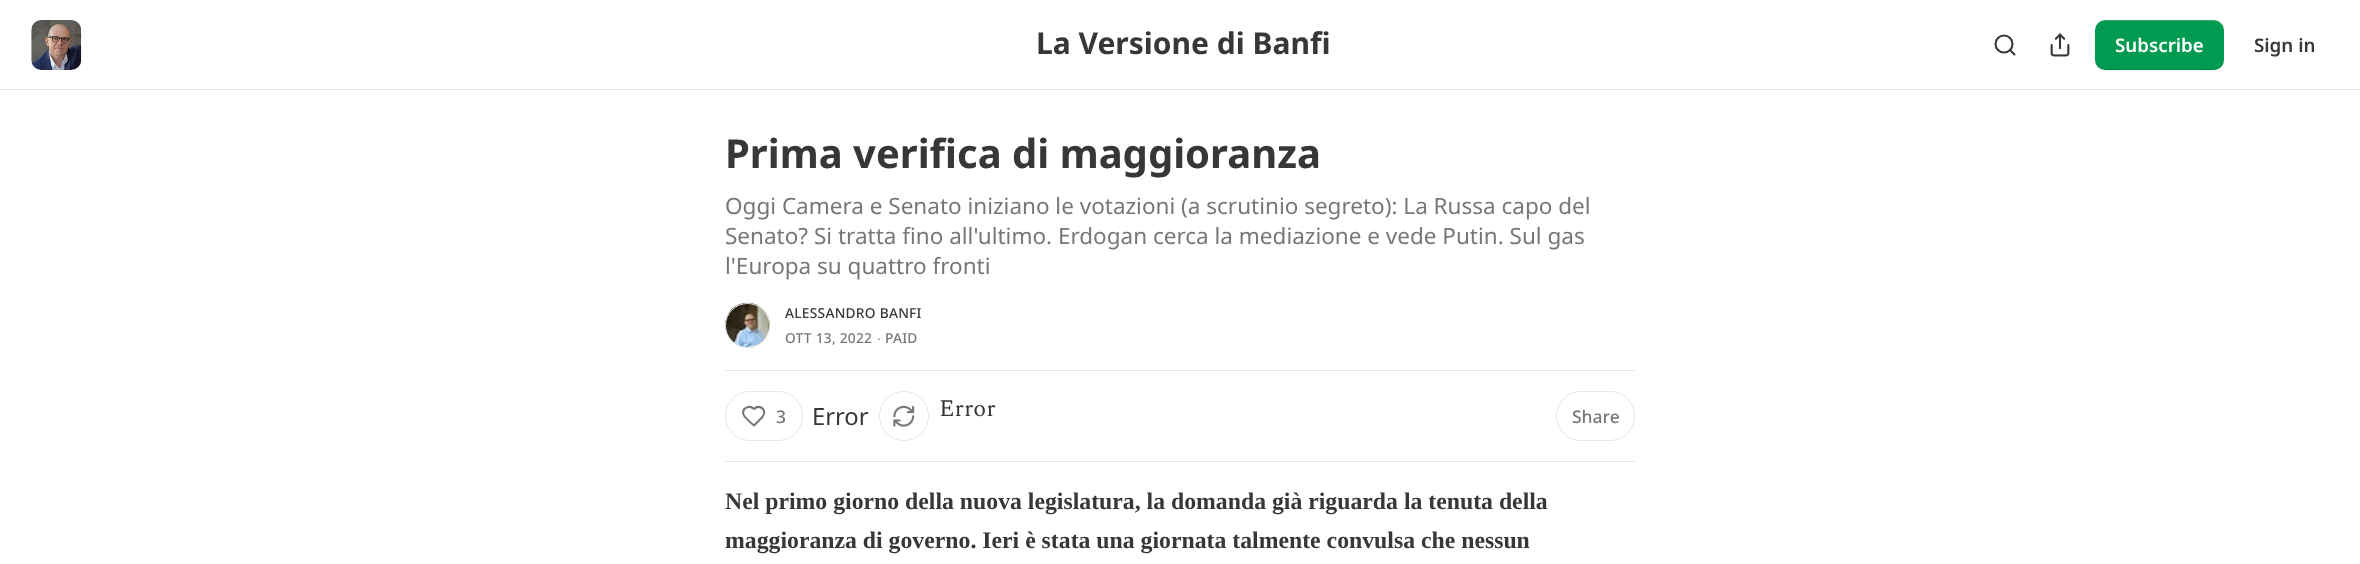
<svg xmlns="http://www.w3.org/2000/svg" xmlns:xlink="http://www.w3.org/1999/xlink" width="2360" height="564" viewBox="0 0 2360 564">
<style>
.cls-1{font:bold 30px Noto Sans;fill:#363737}
.cls-2{font:600 18.75px Noto Sans;fill:#ffffff}
.cls-3{font:600 18.75px Noto Sans;fill:#363737}
.cls-4{font:bold 40px Noto Sans;fill:#363737}
.cls-5{font:22.5px Noto Sans;fill:#777777}
.cls-6{font:500 13.75px Noto Sans;letter-spacing:0.25px;fill:#363737}
.cls-7{font:500 13.75px Noto Sans;letter-spacing:0.25px;fill:#777777}
.cls-8{font:13.75px Liberation Sans;letter-spacing:0.25px;fill:#777777}
.cls-9{font:500 17.5px Noto Sans;fill:#777777}
.cls-10{font:23.75px Noto Sans;fill:#363737}
.cls-11{font:23.75px Spectral;fill:#363737}
.cls-12{font:bold 23.75px Liberation Serif;fill:#363737}
</style>
<rect width="100%" height="100%" fill="#ffffff"/>
<rect fill="#e6e6e6" x="0" y="89" width="2360" height="1"/>
<image xlink:href="image0.png" x="31" y="20" width="51" height="50"/>
<circle fill="none" stroke="#363737" stroke-width="2.1" cx="2004" cy="44" r="8.5"/>
<path fill="none" stroke="#363737" stroke-width="2.1" stroke-linecap="round" stroke-linejoin="round" d="M2014.5 54.5L2010 50"/>
<image xlink:href="image1.png" x="2050" y="33" width="20" height="24"/>
<rect fill="#009b50" x="2095" y="20" width="129" height="50" rx="10"/>
<path fill="#000000" fill-opacity="0.1" d="M2095 59C2095 74 2113 70 2123 70H2196C2206 70 2224 74 2224 59C2224 64 2219 69 2214 69H2105C2099 69 2095 64 2095 59Z"/>
<path fill="#ffffff" fill-opacity="0.2" d="M2105 21H2214C2219 21 2224 26 2224 31C2224 16 2206 20 2196 20H2123C2113 20 2095 16 2095 31C2095 26 2099 21 2105 21Z"/>
<circle fill="none" stroke="#e6e6e6" cx="747.5" cy="325.5" r="22"/>
<image xlink:href="image2.png" x="725" y="302" width="45" height="46"/>
<circle fill="none" stroke="#e6e6e6" cx="747.5" cy="325.5" r="22"/>
<rect fill="#e6e6e6" x="725" y="370" width="910" height="1"/>
<rect fill="#e6e6e6" x="725" y="461" width="910" height="1"/>
<rect fill="none" stroke="#e6e6e6" x="725.5" y="391.5" width="77" height="49" rx="24.5"/>
<path fill="none" stroke="#777777" stroke-width="2.1" stroke-linecap="round" stroke-linejoin="round" d="M761 418.5C769 411 760 403 754 409C749.5 404.5 741.5 408 743.5 414.5C744.5 417.5 751 423 754 425.5Z"/>
<circle fill="none" stroke="#e6e6e6" cx="904" cy="416" r="24.5"/>
<image xlink:href="image3.png" x="893" y="405" width="22" height="22"/>
<rect fill="none" stroke="#e6e6e6" x="1556.5" y="391.5" width="78" height="49" rx="24.5"/>
<text class="cls-1" x="1036" y="54">La Versione di Banfi</text>
<text class="cls-2" x="2115" y="52">Subscribe</text>
<text class="cls-3" x="2254" y="52">Sign in</text>
<text class="cls-4" x="725" y="168">Prima verifica di maggioranza</text>
<text class="cls-5"><tspan x="725" y="214">Oggi Camera e Senato iniziano le votazioni (a scrutinio segreto): La Russa capo del</tspan><tspan x="725" y="244">Senato? Si tratta fino all'ultimo. Erdogan cerca la mediazione e vede Putin. Sul gas</tspan><tspan x="725" y="274">l'Europa su quattro fronti</tspan></text>
<text class="cls-6" x="785" y="318">ALESSANDRO BANFI</text>
<text class="cls-7" x="785" y="343">OTT 13, 2022</text>
<text class="cls-8" x="877" y="343">∙</text>
<text class="cls-7" x="885" y="343">PAID</text>
<text class="cls-9" x="776" y="423">3</text>
<text class="cls-10" x="812" y="425">Error</text>
<text class="cls-11" x="939" y="416">Error</text>
<text class="cls-9" x="1572" y="423">Share</text>
<text class="cls-12"><tspan x="725" y="509">Nel primo giorno della nuova legislatura, la domanda già riguarda la tenuta della</tspan><tspan x="725" y="548">maggioranza di governo. Ieri è stata una giornata talmente convulsa che nessun</tspan></text>
</svg>
